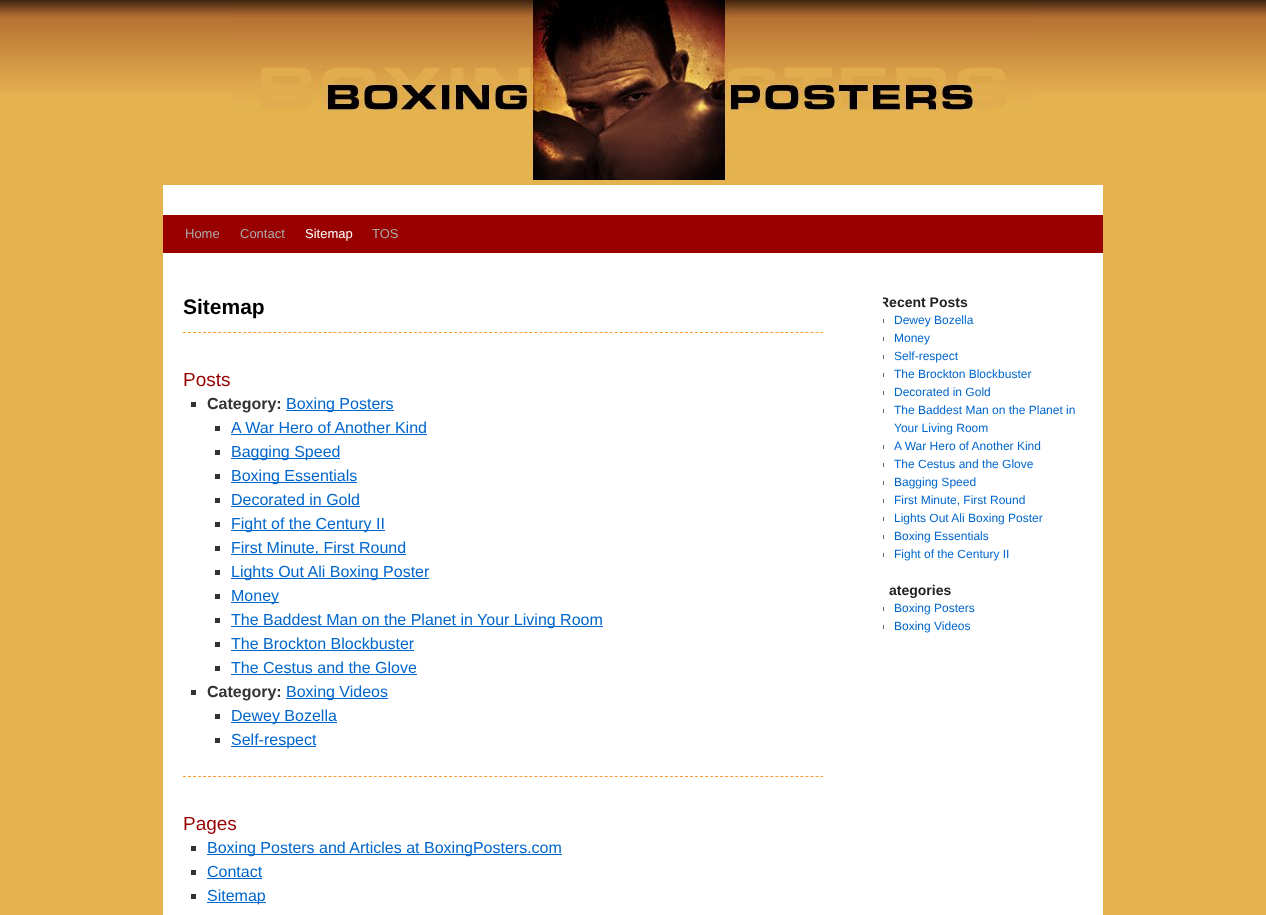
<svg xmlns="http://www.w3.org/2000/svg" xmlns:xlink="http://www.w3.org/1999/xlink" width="1266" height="915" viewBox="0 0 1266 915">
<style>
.cls-1{font:13px Liberation Sans;fill:#aaaaaa}
.cls-2{font:13px Liberation Sans;fill:#ffffff}
.cls-3{font:bold 21px Liberation Sans;fill:#000000}
.cls-4{font:19px Liberation Sans;fill:#990000}
.cls-5{font:bold 16px Liberation Sans;fill:#333333}
.cls-6{font:16px Liberation Sans;fill:#0066cc}
.cls-7{font:bold 14px Liberation Sans;fill:#222222}
.cls-8{font:12px Liberation Sans;fill:#0066cc}
</style>
<defs>
<clipPath id="clip1"><rect x="883" y="293" width="200" height="360"/></clipPath>
</defs>
<rect width="100%" height="100%" fill="#e5b250"/>
<image xlink:href="image0.png" x="0" y="0" width="1266" height="94"/>
<image xlink:href="image1.png" x="233" y="0" width="800" height="180"/>
<rect fill="#ffffff" x="163" y="185" width="940" height="730"/>
<rect fill="#990000" x="163" y="215" width="940" height="38"/>
<path fill="none" stroke="#ff9933" stroke-dasharray="3 2.02" d="M183 332.5H823"/>
<rect fill="#333333" x="191" y="402" width="5" height="5"/>
<rect fill="#0066cc" x="286" y="410" width="108" height="1"/>
<rect fill="#333333" x="215" y="426" width="5" height="5"/>
<rect fill="#0066cc" x="231" y="434" width="196" height="1"/>
<rect fill="#333333" x="215" y="450" width="5" height="5"/>
<rect fill="#0066cc" x="231" y="458" width="109" height="1"/>
<rect fill="#333333" x="215" y="474" width="5" height="5"/>
<rect fill="#0066cc" x="231" y="482" width="126" height="1"/>
<rect fill="#333333" x="215" y="498" width="5" height="5"/>
<rect fill="#0066cc" x="231" y="506" width="129" height="1"/>
<rect fill="#333333" x="215" y="522" width="5" height="5"/>
<rect fill="#0066cc" x="231" y="530" width="154" height="1"/>
<rect fill="#333333" x="215" y="546" width="5" height="5"/>
<rect fill="#0066cc" x="231" y="554" width="175" height="1"/>
<rect fill="#333333" x="215" y="570" width="5" height="5"/>
<rect fill="#0066cc" x="231" y="578" width="198" height="1"/>
<rect fill="#333333" x="215" y="594" width="5" height="5"/>
<rect fill="#0066cc" x="231" y="602" width="48" height="1"/>
<rect fill="#333333" x="215" y="618" width="5" height="5"/>
<rect fill="#0066cc" x="231" y="626" width="372" height="1"/>
<rect fill="#333333" x="215" y="642" width="5" height="5"/>
<rect fill="#0066cc" x="231" y="650" width="183" height="1"/>
<rect fill="#333333" x="215" y="666" width="5" height="5"/>
<rect fill="#0066cc" x="231" y="674" width="186" height="1"/>
<rect fill="#333333" x="191" y="690" width="5" height="5"/>
<rect fill="#0066cc" x="286" y="698" width="102" height="1"/>
<rect fill="#333333" x="215" y="714" width="5" height="5"/>
<rect fill="#0066cc" x="231" y="722" width="106" height="1"/>
<rect fill="#333333" x="215" y="738" width="5" height="5"/>
<rect fill="#0066cc" x="231" y="746" width="85" height="1"/>
<path fill="none" stroke="#ff9933" stroke-dasharray="3 2.02" d="M183 776.5H823"/>
<rect fill="#333333" x="191" y="846" width="5" height="5"/>
<rect fill="#0066cc" x="207" y="854" width="355" height="1"/>
<rect fill="#333333" x="191" y="870" width="5" height="5"/>
<rect fill="#0066cc" x="207" y="878" width="55" height="1"/>
<rect fill="#333333" x="191" y="894" width="5" height="5"/>
<rect fill="#0066cc" x="207" y="902" width="59" height="1"/>
<rect fill="#666666" x="883" y="319" width="1" height="4"/>
<rect fill="#666666" x="883" y="337" width="1" height="4"/>
<rect fill="#666666" x="883" y="355" width="1" height="4"/>
<rect fill="#666666" x="883" y="373" width="1" height="4"/>
<rect fill="#666666" x="883" y="391" width="1" height="4"/>
<rect fill="#666666" x="883" y="409" width="1" height="4"/>
<rect fill="#666666" x="883" y="445" width="1" height="4"/>
<rect fill="#666666" x="883" y="463" width="1" height="4"/>
<rect fill="#666666" x="883" y="481" width="1" height="4"/>
<rect fill="#666666" x="883" y="499" width="1" height="4"/>
<rect fill="#666666" x="883" y="517" width="1" height="4"/>
<rect fill="#666666" x="883" y="535" width="1" height="4"/>
<rect fill="#666666" x="883" y="553" width="1" height="4"/>
<rect fill="#666666" x="883" y="607" width="1" height="4"/>
<rect fill="#666666" x="883" y="625" width="1" height="4"/>
<text class="cls-1" x="185" y="238">Home</text>
<text class="cls-1" x="240" y="238">Contact</text>
<text class="cls-2" x="305" y="238">Sitemap</text>
<text class="cls-1" x="372" y="238">TOS</text>
<text class="cls-3" x="183" y="314">Sitemap</text>
<text class="cls-4" x="183" y="386">Posts</text>
<text class="cls-5" x="207" y="409">Category:</text>
<text class="cls-6" x="286" y="409">Boxing Posters</text>
<text class="cls-6"><tspan x="231" y="433">A War Hero of Another Kind</tspan><tspan x="231" y="457">Bagging Speed</tspan><tspan x="231" y="481">Boxing Essentials</tspan><tspan x="231" y="505">Decorated in Gold</tspan><tspan x="231" y="529">Fight of the Century II</tspan><tspan x="231" y="553">First Minute, First Round</tspan><tspan x="231" y="577">Lights Out Ali Boxing Poster</tspan><tspan x="231" y="601">Money</tspan><tspan x="231" y="625">The Baddest Man on the Planet in Your Living Room</tspan><tspan x="231" y="649">The Brockton Blockbuster</tspan><tspan x="231" y="673">The Cestus and the Glove</tspan></text>
<text class="cls-5" x="207" y="697">Category:</text>
<text class="cls-6" x="286" y="697">Boxing Videos</text>
<text class="cls-6"><tspan x="231" y="721">Dewey Bozella</tspan><tspan x="231" y="745">Self-respect</tspan></text>
<text class="cls-4" x="183" y="830">Pages</text>
<text class="cls-6"><tspan x="207" y="853">Boxing Posters and Articles at BoxingPosters.com</tspan><tspan x="207" y="877">Contact</tspan><tspan x="207" y="901">Sitemap</tspan></text>
<g clip-path="url(#clip1)">
<text class="cls-7" x="879" y="307">Recent Posts</text>
</g>
<text class="cls-8"><tspan x="894" y="324">Dewey Bozella</tspan><tspan x="894" y="342">Money</tspan><tspan x="894" y="360">Self-respect</tspan><tspan x="894" y="378">The Brockton Blockbuster</tspan><tspan x="894" y="396">Decorated in Gold</tspan><tspan x="894" y="414">The Baddest Man on the Planet in</tspan><tspan x="894" y="432">Your Living Room</tspan><tspan x="894" y="450">A War Hero of Another Kind</tspan><tspan x="894" y="468">The Cestus and the Glove</tspan><tspan x="894" y="486">Bagging Speed</tspan><tspan x="894" y="504">First Minute, First Round</tspan><tspan x="894" y="522">Lights Out Ali Boxing Poster</tspan><tspan x="894" y="540">Boxing Essentials</tspan><tspan x="894" y="558">Fight of the Century II</tspan></text>
<text class="cls-7" x="889" y="595">ategories</text>
<text class="cls-8"><tspan x="894" y="612">Boxing Posters</tspan><tspan x="894" y="630">Boxing Videos</tspan></text>
</svg>
